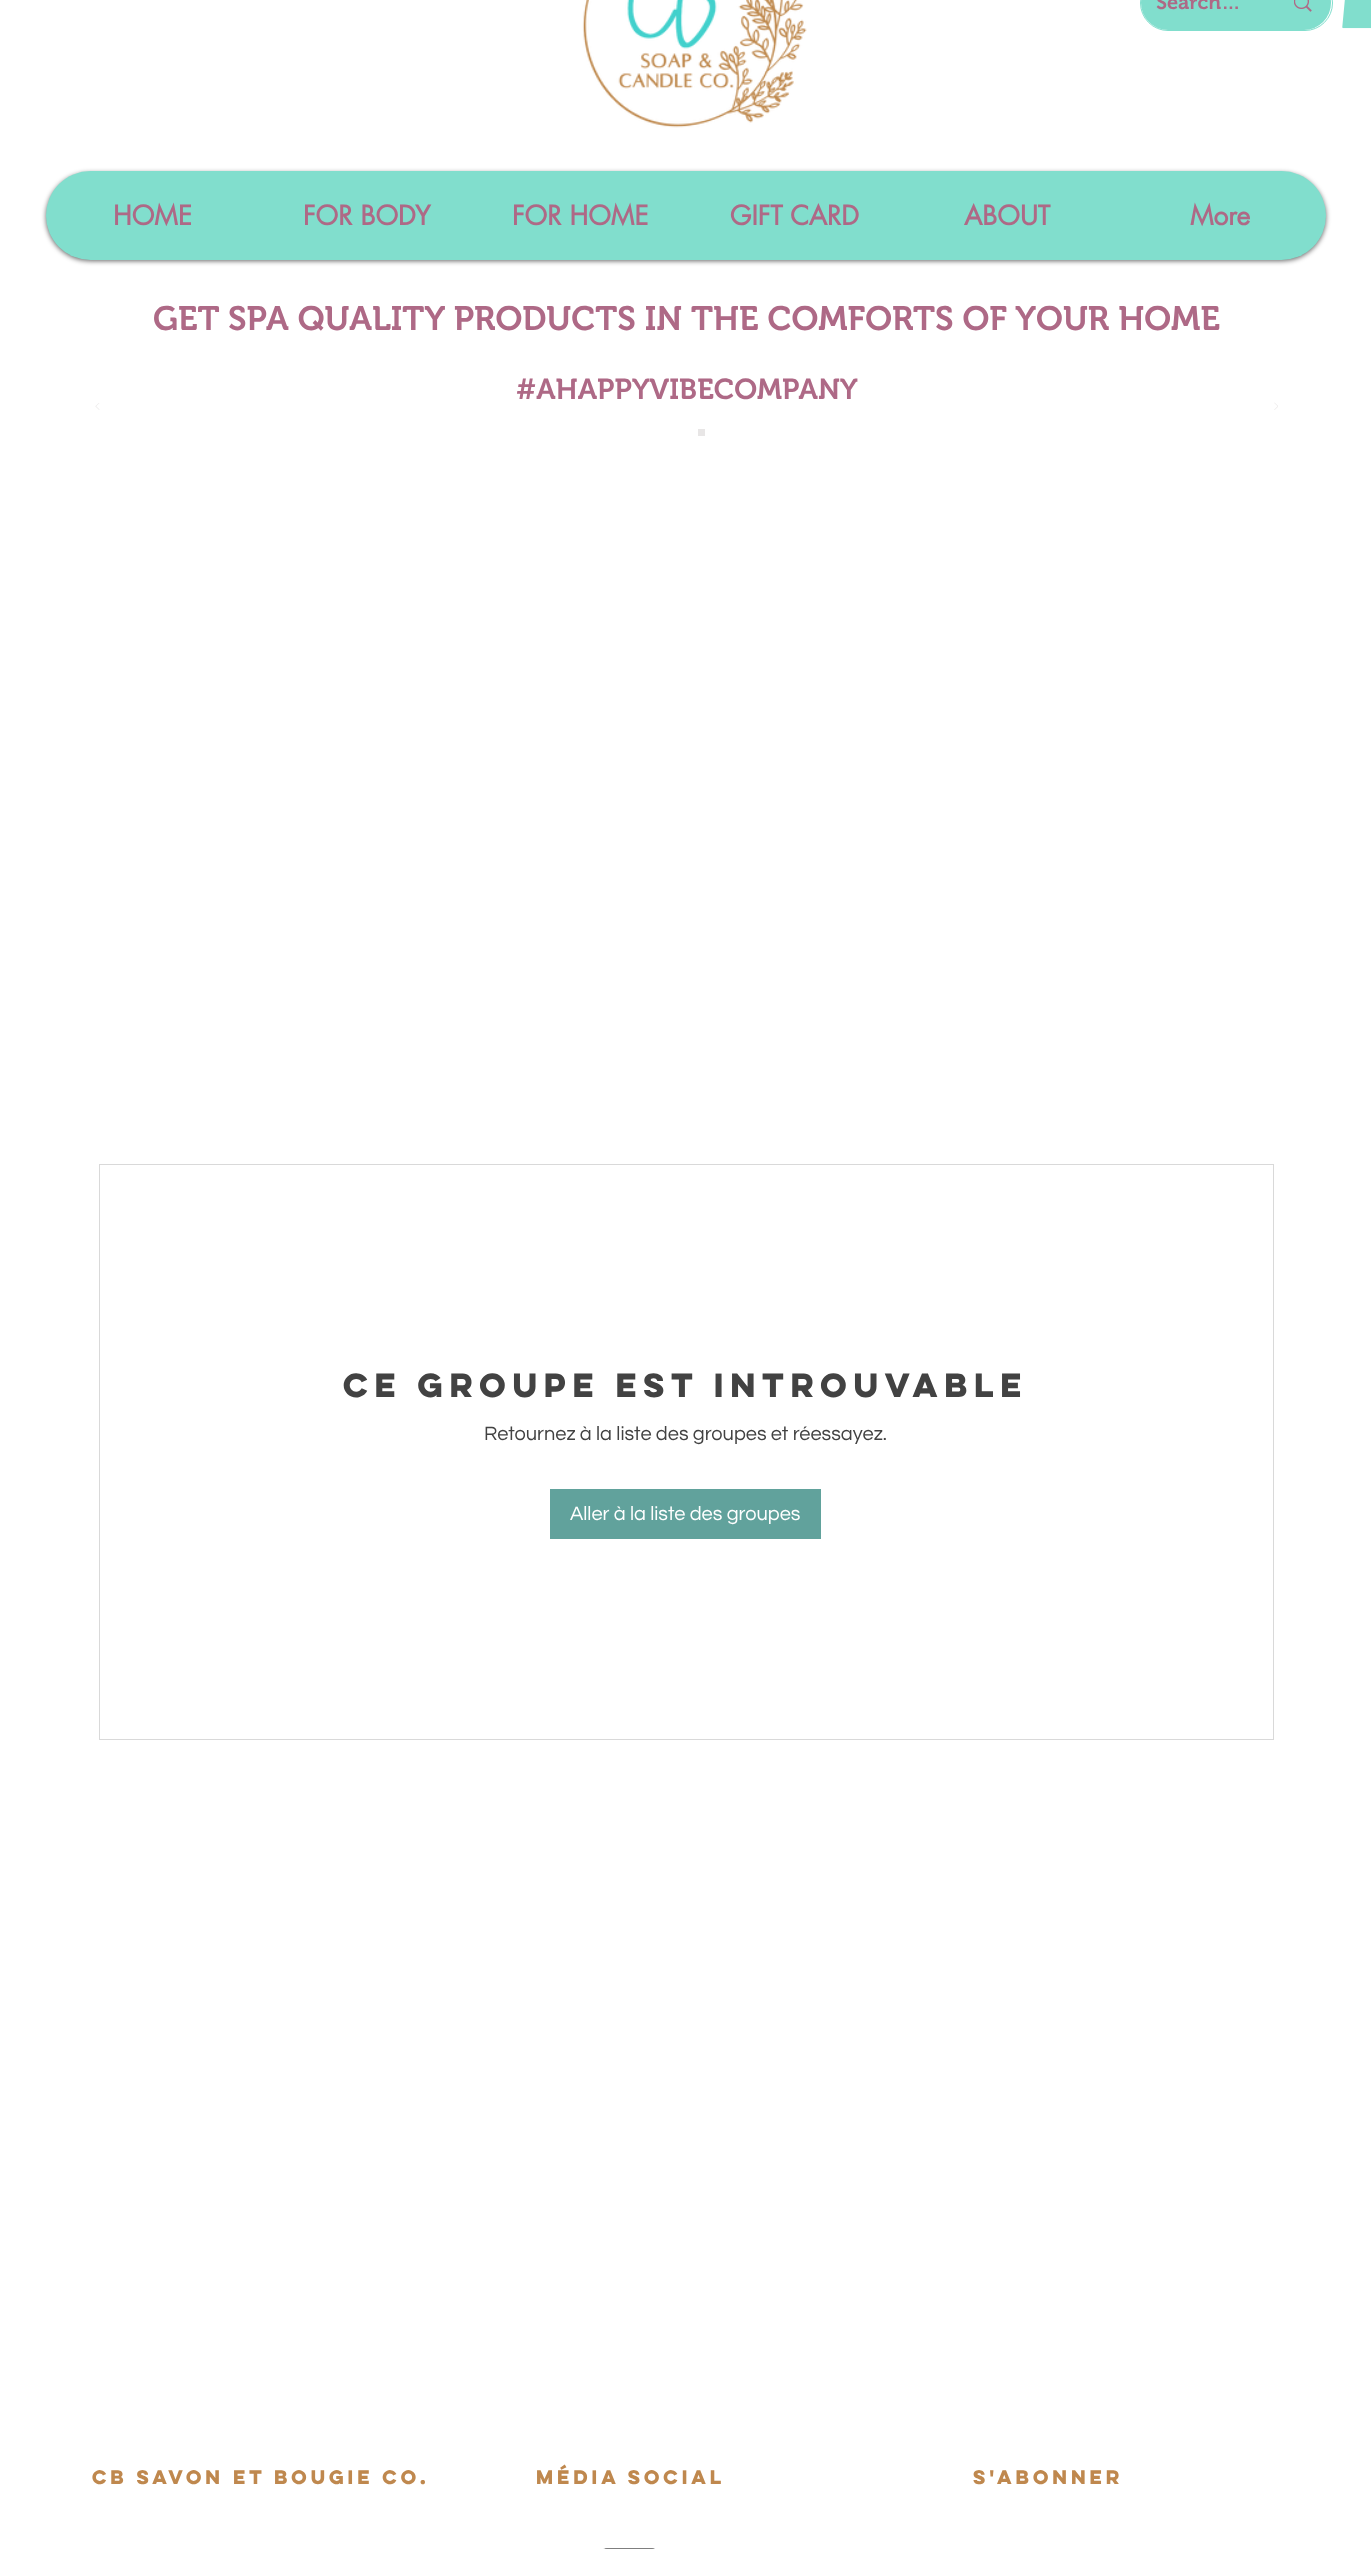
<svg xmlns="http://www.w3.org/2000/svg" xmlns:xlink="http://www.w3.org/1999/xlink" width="1371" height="2549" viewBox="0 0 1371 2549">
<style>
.cls-1{font:600 20px 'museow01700';fill:#ae6986}
.cls-2{font:bold 26.25px futura;fill:#ae6986}
.cls-3{font:600 33.75px 'museow01700';fill:#ae6986}
.cls-4{font:600 28.75px 'museow01700';fill:#ae6986}
.cls-5{font:bold 30px 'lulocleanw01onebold';fill:#424242}
.cls-6{font:20px Questrial;fill:#424242}
.cls-7{font:20px Questrial;fill:#ffffff}
.cls-8{font:bold 17.5px 'lulocleanw01onebold';fill:#bf884e}
</style>
<rect width="100%" height="100%" fill="#ffffff"/>
<image xlink:href="image0.png" x="582" y="0" width="225" height="128"/>
<rect fill="none" stroke="#81decd" x="1140.5" y="-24.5" width="192" height="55" rx="27.5"/>
<rect fill="#81decd" x="1141" y="-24" width="190" height="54" rx="27"/>
<image xlink:href="image1.png" x="1294" y="0" width="18" height="12"/>
<image xlink:href="image2.png" x="1342" y="0" width="29" height="29"/>
<rect fill="#000000" fill-opacity="0.6" filter="blur(2.5px)" x="46" y="173" width="1280" height="88" rx="44"/>
<rect fill="#81decd" x="46" y="171" width="1280" height="89" rx="44.5"/>
<image xlink:href="image3.png" x="95" y="403" width="5" height="7"/>
<image xlink:href="image4.png" x="1274" y="402" width="4" height="8"/>
<rect fill="#e8e6e6" x="698" y="429" width="7" height="7"/>
<rect fill="none" stroke="#d9d9d9" x="99.5" y="1164.5" width="1174" height="575"/>
<rect fill="#61a29c" x="550" y="1489" width="271" height="50"/>
<image xlink:href="image5.png" x="603" y="2548" width="52" height="1"/>
<text class="cls-1" x="1156" y="9">Search…</text>
<text class="cls-2" x="113" y="225">HOME</text>
<text class="cls-2" x="303" y="225">FOR BODY</text>
<text class="cls-2" x="512" y="225">FOR HOME</text>
<text class="cls-2" x="730" y="225">GIFT CARD</text>
<text class="cls-2" x="964" y="225">ABOUT</text>
<text class="cls-2" x="1190" y="225">More</text>
<text class="cls-3" x="153" y="330">GET SPA QUALITY PRODUCTS IN THE COMFORTS OF YOUR HOME</text>
<text class="cls-4" x="516" y="399">#AHAPPYVIBECOMPANY</text>
<text class="cls-5" x="343" y="1397">Ce groupe est introuvable</text>
<text class="cls-6" x="484" y="1440">Retournez à la liste des groupes et réessayez.</text>
<text class="cls-7" x="570" y="1520">Aller à la liste des groupes</text>
<text class="cls-8" x="92" y="2484">cb savon et bougie co.</text>
<text class="cls-8" x="536" y="2484">Média social</text>
<text class="cls-8" x="973" y="2484">S'ABONNER</text>
</svg>
